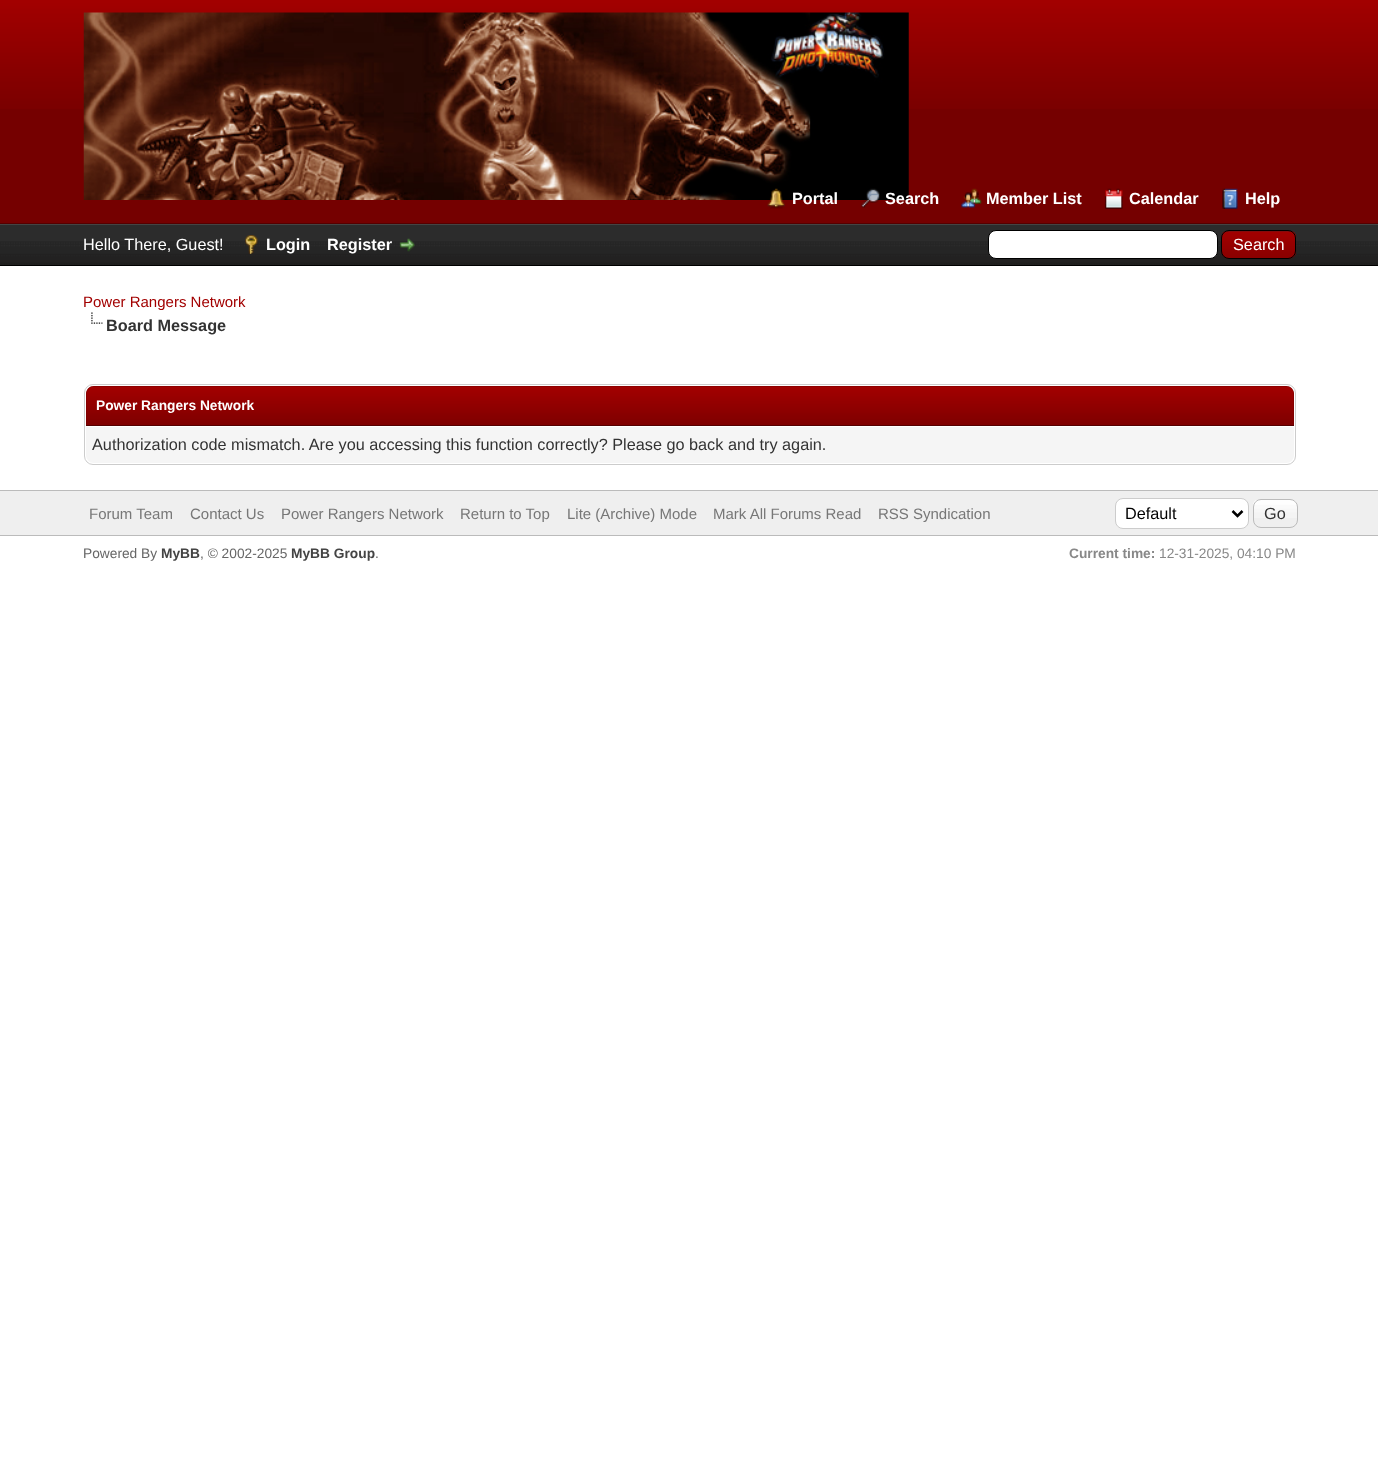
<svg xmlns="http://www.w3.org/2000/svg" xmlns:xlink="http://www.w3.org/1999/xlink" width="1378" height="1471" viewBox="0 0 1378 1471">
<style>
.cls-1{font:bold 16.25px Liberation Sans;fill:#ffffff}
.cls-2{font:16.25px Liberation Sans;fill:#ffffff}
.cls-3{font:15px Liberation Sans;fill:#a20000}
.cls-4{font:bold 16.25px Liberation Sans;fill:#333333}
.cls-5{font:bold 13.75px Liberation Sans;fill:#ffffff}
.cls-6{font:16.25px Liberation Sans;fill:#333333}
.cls-7{font:15px Liberation Sans;fill:#777777}
.cls-8{font:16.25px Liberation Sans;fill:#000000}
.cls-9{font:13.75px Liberation Sans;fill:#666666}
.cls-10{font:bold 13.75px Liberation Sans;fill:#444444}
.cls-11{font:bold 13.75px Liberation Sans;fill:#888888}
.cls-12{font:13.75px Liberation Sans;fill:#888888}
</style>
<rect width="100%" height="100%" fill="#ffffff"/>
<rect fill="#750000" x="0" y="109" width="1378" height="114"/>
<image xlink:href="image0.png" x="0" y="0" width="1378" height="109"/>
<rect fill="#550000" x="0" y="223" width="1378" height="1"/>
<image xlink:href="image1.png" x="83" y="12" width="826" height="188"/>
<image xlink:href="image2.png" x="767" y="188" width="18" height="21"/>
<image xlink:href="image3.png" x="861" y="188" width="19" height="20"/>
<image xlink:href="image4.png" x="961" y="188" width="21" height="20"/>
<image xlink:href="image5.png" x="1104" y="188" width="19" height="21"/>
<image xlink:href="image6.png" x="1222" y="188" width="16" height="21"/>
<image xlink:href="image7.png" x="0" y="225" width="1378" height="40"/>
<rect fill="#444444" x="0" y="224" width="1378" height="1"/>
<rect fill="#000000" x="0" y="265" width="1378" height="1"/>
<image xlink:href="image8.png" x="245" y="235" width="13" height="19"/>
<image xlink:href="image9.png" x="399" y="238" width="16" height="14"/>
<rect fill="#ffffff" stroke="#000000" x="988.5" y="230.5" width="229" height="28" rx="7.5"/>
<image xlink:href="image10.png" x="1221" y="231" width="76" height="28"/>
<rect fill="none" stroke="#000000" x="1221.5" y="230.5" width="74" height="28" rx="7.5"/>
<image xlink:href="image11.png" x="91" y="312" width="12" height="12"/>
<rect fill="none" stroke="#cccccc" x="84.5" y="384.5" width="1211" height="80" rx="8.5"/>
<path fill="#750000" d="M94 386H1286C1290.5 386 1294 389.5 1294 394V426H86V394C86 389.5 89.5 386 94 386Z"/>
<image xlink:href="image12.png" x="86" y="386" width="1208" height="39"/>
<rect fill="#550000" x="86" y="425" width="1208" height="1"/>
<path fill="#f5f5f5" d="M86 426H1294V455C1294 459.5 1290.5 463 1286 463H94C89.5 463 86 459.5 86 455Z"/>
<rect fill="#ffffff" x="86" y="426" width="1208" height="1"/>
<rect fill="#efefef" x="0" y="491" width="1378" height="44"/>
<rect fill="#bbbbbb" x="0" y="490" width="1378" height="1"/>
<rect fill="#bbbbbb" x="0" y="535" width="1378" height="1"/>
<rect fill="#ffffff" stroke="#cccccc" x="1115.5" y="498.5" width="133" height="30" rx="7.5"/>
<path fill="none" stroke="#000000" stroke-width="2.5" d="M1232.5 511L1237.5 516L1242.5 511"/>
<image xlink:href="image13.png" x="1253" y="500" width="44" height="18"/>
<rect fill="none" stroke="#bbbbbb" x="1253.5" y="499.5" width="44" height="28" rx="7.5"/>
<text class="cls-1" x="792" y="204">Portal</text>
<text class="cls-1" x="885" y="204">Search</text>
<text class="cls-1" x="986" y="204">Member List</text>
<text class="cls-1" x="1129" y="204">Calendar</text>
<text class="cls-1" x="1245" y="204">Help</text>
<text class="cls-2" x="83" y="250">Hello There, Guest!</text>
<text class="cls-1" x="266" y="250">Login</text>
<text class="cls-1" x="327" y="250">Register</text>
<text class="cls-2" x="1233" y="250">Search</text>
<text class="cls-3" x="83" y="307">Power Rangers Network</text>
<text class="cls-4" x="106" y="331">Board Message</text>
<text class="cls-5" x="96" y="410">Power Rangers Network</text>
<text class="cls-6" x="92" y="450">Authorization code mismatch. Are you accessing this function correctly? Please go back and try again.</text>
<text class="cls-7" x="89" y="519">Forum Team</text>
<text class="cls-7" x="190" y="519">Contact Us</text>
<text class="cls-7" x="281" y="519">Power Rangers Network</text>
<text class="cls-7" x="460" y="519">Return to Top</text>
<text class="cls-7" x="567" y="519">Lite (Archive) Mode</text>
<text class="cls-7" x="713" y="519">Mark All Forums Read</text>
<text class="cls-7" x="878" y="519">RSS Syndication</text>
<text class="cls-8" x="1125" y="519">Default</text>
<text class="cls-6" x="1264" y="519">Go</text>
<text class="cls-9" x="83" y="558">Powered By</text>
<text class="cls-10" x="161" y="558">MyBB</text>
<text class="cls-9" x="200" y="558">, © 2002-2025</text>
<text class="cls-10" x="291" y="558">MyBB Group</text>
<text class="cls-9" x="375" y="558">.</text>
<text class="cls-11" x="1069" y="558">Current time:</text>
<text class="cls-12" x="1159" y="558">12-31-2025, 04:10 PM</text>
</svg>
